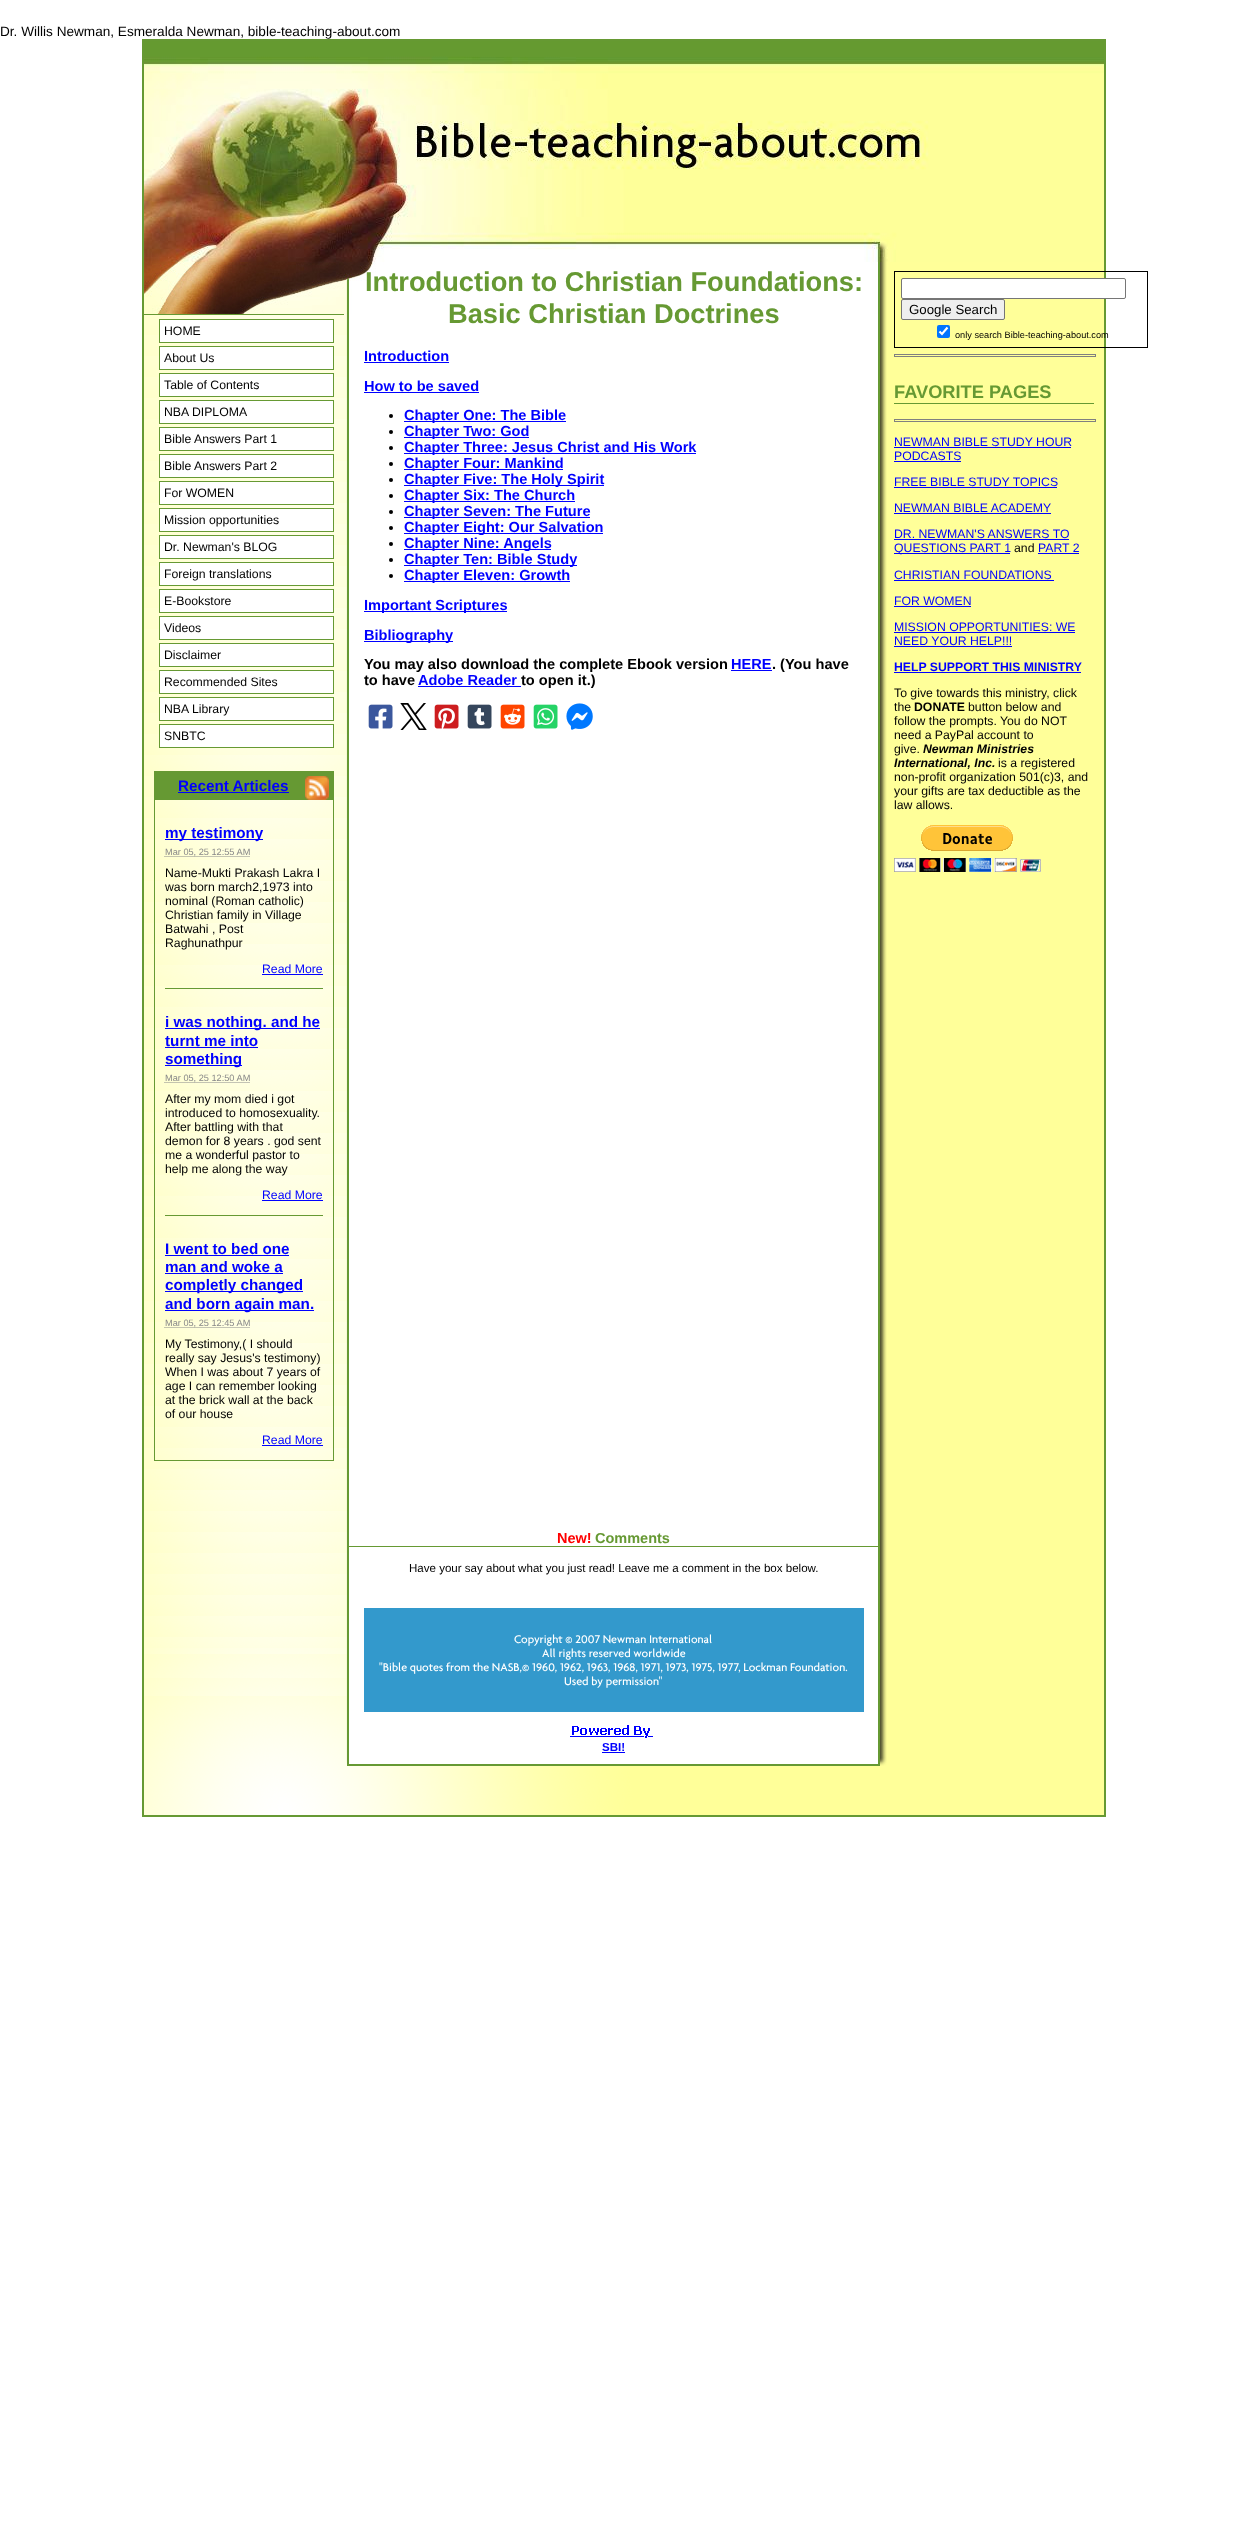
<svg xmlns="http://www.w3.org/2000/svg" xmlns:xlink="http://www.w3.org/1999/xlink" width="1247" height="2545" viewBox="0 0 1247 2545">
<style>
.cls-1{font:13.6px Liberation Sans;fill:#000000}
.cls-2{font:12.25px Liberation Sans;fill:#000000}
.cls-3{font:bold 15.25px Liberation Sans;fill:#0000ff}
.cls-4{font:9.2px Liberation Sans;fill:#888888}
.cls-5{font:12.25px Liberation Sans;fill:#0000ff}
.cls-6{font:bold 27.25px Liberation Sans;fill:#669933}
.cls-7{font:bold 14.6px Liberation Sans;fill:#0000ff}
.cls-8{font:bold 14.6px Liberation Sans;fill:#000000}
.cls-9{font:13.25px Liberation Sans;fill:#000000}
.cls-10{font:9.2px Liberation Sans;fill:#000000}
.cls-11{font:bold 18.25px Liberation Sans;fill:#669933}
.cls-12{font:bold 12.25px Liberation Sans;fill:#0000ff}
.cls-13{font:bold 12.25px Liberation Sans;fill:#000000}
.cls-14{font:italic bold 12.25px Liberation Sans;fill:#000000}
.cls-15{font:bold 14.5px Liberation Sans;fill:#ff0000}
.cls-16{font:bold 14.5px Liberation Sans;fill:#669933}
.cls-17{font:11.55px Liberation Sans;fill:#000000}
.cls-18{font:12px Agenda;fill:#ffffff}
.cls-19{font:bold 11.55px Liberation Sans;fill:#0000ff}
</style>
<rect width="100%" height="100%" fill="#ffffff"/>
<image xlink:href="image0.png" x="144" y="262" width="960" height="1553"/>
<rect fill="none" stroke="#669933" stroke-width="2" x="143" y="40" width="962" height="1776"/>
<image xlink:href="image1.png" x="144" y="41" width="960" height="221"/>
<rect fill="#669933" x="144" y="314" width="200" height="1"/>
<rect fill="#ffffff" stroke="#669933" x="159.5" y="319.5" width="174" height="23"/>
<rect fill="#ffffff" stroke="#669933" x="159.5" y="346.5" width="174" height="23"/>
<rect fill="#ffffff" stroke="#669933" x="159.5" y="373.5" width="174" height="23"/>
<rect fill="#ffffff" stroke="#669933" x="159.5" y="400.5" width="174" height="23"/>
<rect fill="#ffffff" stroke="#669933" x="159.5" y="427.5" width="174" height="23"/>
<rect fill="#ffffff" stroke="#669933" x="159.5" y="454.5" width="174" height="23"/>
<rect fill="#ffffff" stroke="#669933" x="159.5" y="481.5" width="174" height="23"/>
<rect fill="#ffffff" stroke="#669933" x="159.5" y="508.5" width="174" height="23"/>
<rect fill="#ffffff" stroke="#669933" x="159.5" y="535.5" width="174" height="23"/>
<rect fill="#ffffff" stroke="#669933" x="159.5" y="562.5" width="174" height="23"/>
<rect fill="#ffffff" stroke="#669933" x="159.5" y="589.5" width="174" height="23"/>
<rect fill="#ffffff" stroke="#669933" x="159.5" y="616.5" width="174" height="23"/>
<rect fill="#ffffff" stroke="#669933" x="159.5" y="643.5" width="174" height="23"/>
<rect fill="#ffffff" stroke="#669933" x="159.5" y="670.5" width="174" height="23"/>
<rect fill="#ffffff" stroke="#669933" x="159.5" y="697.5" width="174" height="23"/>
<rect fill="#ffffff" stroke="#669933" x="159.5" y="724.5" width="174" height="23"/>
<rect fill="none" stroke="#669933" x="154.5" y="771.5" width="179" height="689"/>
<rect fill="#669933" x="155" y="772" width="178" height="28"/>
<rect fill="#0000ff" x="178" y="792" width="111" height="1"/>
<image xlink:href="image2.png" x="305" y="776" width="24" height="24"/>
<rect fill="#0000ff" x="165" y="839" width="98" height="1"/>
<path fill="none" stroke="#888888" stroke-dasharray="1 1" d="M164.5 856.5H249.5"/>
<rect fill="#0000ff" x="262" y="974" width="61" height="1"/>
<rect fill="#669933" x="165" y="988" width="158" height="1"/>
<rect fill="#0000ff" x="165" y="1028" width="155" height="1"/>
<rect fill="#0000ff" x="165" y="1047" width="93" height="1"/>
<rect fill="#0000ff" x="165" y="1065" width="77" height="1"/>
<path fill="none" stroke="#888888" stroke-dasharray="1 1" d="M164.5 1082.5H249.5"/>
<rect fill="#0000ff" x="262" y="1200" width="61" height="1"/>
<rect fill="#669933" x="165" y="1215" width="158" height="1"/>
<rect fill="#0000ff" x="165" y="1255" width="124" height="1"/>
<rect fill="#0000ff" x="165" y="1273" width="118" height="1"/>
<rect fill="#0000ff" x="165" y="1291" width="138" height="1"/>
<rect fill="#0000ff" x="165" y="1310" width="149" height="1"/>
<path fill="none" stroke="#888888" stroke-dasharray="1 1" d="M164.5 1327.5H249.5"/>
<rect fill="#0000ff" x="262" y="1445" width="61" height="1"/>
<image xlink:href="image3.png" x="144" y="262" width="736" height="52"/>
<rect fill="#0000ff" x="364" y="362" width="85" height="1"/>
<rect fill="#0000ff" x="364" y="392" width="115" height="1"/>
<circle fill="#000000" cx="391" cy="416" r="2"/>
<rect fill="#0000ff" x="404" y="421" width="162" height="1"/>
<circle fill="#000000" cx="391" cy="432" r="2"/>
<rect fill="#0000ff" x="404" y="437" width="125" height="1"/>
<circle fill="#000000" cx="391" cy="448" r="2"/>
<rect fill="#0000ff" x="404" y="453" width="292" height="1"/>
<circle fill="#000000" cx="391" cy="464" r="2"/>
<rect fill="#0000ff" x="404" y="469" width="159" height="1"/>
<circle fill="#000000" cx="391" cy="480" r="2"/>
<rect fill="#0000ff" x="404" y="485" width="200" height="1"/>
<circle fill="#000000" cx="391" cy="496" r="2"/>
<rect fill="#0000ff" x="404" y="501" width="171" height="1"/>
<circle fill="#000000" cx="391" cy="512" r="2"/>
<rect fill="#0000ff" x="404" y="517" width="186" height="1"/>
<circle fill="#000000" cx="391" cy="528" r="2"/>
<rect fill="#0000ff" x="404" y="533" width="199" height="1"/>
<circle fill="#000000" cx="391" cy="544" r="2"/>
<rect fill="#0000ff" x="404" y="549" width="147" height="1"/>
<circle fill="#000000" cx="391" cy="560" r="2"/>
<rect fill="#0000ff" x="404" y="565" width="173" height="1"/>
<circle fill="#000000" cx="391" cy="576" r="2"/>
<rect fill="#0000ff" x="404" y="581" width="166" height="1"/>
<rect fill="#0000ff" x="364" y="611" width="143" height="1"/>
<rect fill="#0000ff" x="364" y="641" width="89" height="1"/>
<rect fill="#0000ff" x="731" y="670" width="41" height="1"/>
<rect fill="#0000ff" x="418" y="686" width="103" height="1"/>
<image xlink:href="image4.png" x="368" y="704" width="25" height="25"/>
<image xlink:href="image5.png" x="400" y="703" width="27" height="27"/>
<image xlink:href="image6.png" x="434" y="704" width="25" height="25"/>
<image xlink:href="image7.png" x="467" y="704" width="25" height="25"/>
<image xlink:href="image8.png" x="500" y="704" width="25" height="25"/>
<image xlink:href="image9.png" x="533" y="704" width="25" height="25"/>
<image xlink:href="image10.png" x="566" y="703" width="27" height="27"/>
<rect fill="none" stroke="#000000" x="894.5" y="271.5" width="253" height="76"/>
<rect fill="#ffffff" stroke="#767676" x="901.5" y="278.5" width="224" height="20" rx="1.5"/>
<rect fill="#efefef" stroke="#767676" x="901.5" y="299.5" width="103" height="20" rx="1.5"/>
<rect fill="#0075ff" x="937" y="325" width="13" height="13" rx="2"/>
<path fill="none" stroke="#ffffff" stroke-width="2.1" d="M939.5 331.5L942 334L947.5 327.5"/>
<rect fill="none" stroke="#808080" x="894.5" y="354.5" width="201" height="2"/>
<rect fill="#669933" x="894" y="403" width="200" height="1"/>
<rect fill="none" stroke="#808080" x="894.5" y="419.5" width="201" height="2"/>
<rect fill="#0000ff" x="894" y="447" width="177" height="1"/>
<rect fill="#0000ff" x="894" y="461" width="67" height="1"/>
<rect fill="#0000ff" x="894" y="487" width="163" height="1"/>
<rect fill="#0000ff" x="894" y="513" width="157" height="1"/>
<rect fill="#0000ff" x="894" y="539" width="175" height="1"/>
<rect fill="#0000ff" x="894" y="553" width="116" height="1"/>
<rect fill="#0000ff" x="1038" y="553" width="41" height="1"/>
<rect fill="#0000ff" x="894" y="580" width="160" height="1"/>
<rect fill="#0000ff" x="894" y="606" width="77" height="1"/>
<rect fill="#0000ff" x="894" y="632" width="181" height="1"/>
<rect fill="#0000ff" x="894" y="646" width="118" height="1"/>
<rect fill="#0000ff" x="894" y="672" width="187" height="1"/>
<image xlink:href="image11.png" x="894" y="825" width="147" height="47"/>
<image xlink:href="image12.png" x="144" y="1648" width="743" height="167"/>
<rect fill="#669933" x="349" y="1546" width="530" height="1"/>
<rect fill="#3399cc" x="364" y="1608" width="500" height="104"/>
<image xlink:href="image13.png" x="570" y="1725" width="83" height="13"/>
<rect fill="#0000ff" x="602" y="1752" width="23" height="1"/>
<text class="cls-1" x="0" y="36">Dr. Willis Newman, Esmeralda Newman, bible-teaching-about.com</text>
<text class="cls-2" x="164" y="335">HOME</text>
<text class="cls-2" x="164" y="362">About Us</text>
<text class="cls-2" x="164" y="389">Table of Contents</text>
<text class="cls-2" x="164" y="416">NBA DIPLOMA</text>
<text class="cls-2" x="164" y="443">Bible Answers Part 1</text>
<text class="cls-2" x="164" y="470">Bible Answers Part 2</text>
<text class="cls-2" x="164" y="497">For WOMEN</text>
<text class="cls-2" x="164" y="524">Mission opportunities</text>
<text class="cls-2" x="164" y="551">Dr. Newman's BLOG</text>
<text class="cls-2" x="164" y="578">Foreign translations</text>
<text class="cls-2" x="164" y="605">E-Bookstore</text>
<text class="cls-2" x="164" y="632">Videos</text>
<text class="cls-2" x="164" y="659">Disclaimer</text>
<text class="cls-2" x="164" y="686">Recommended Sites</text>
<text class="cls-2" x="164" y="713">NBA Library</text>
<text class="cls-2" x="164" y="740">SNBTC</text>
<text class="cls-3" x="178" y="791">Recent Articles</text>
<text class="cls-3" x="165" y="838">my testimony</text>
<text class="cls-4" x="165" y="855">Mar 05, 25 12:55 AM</text>
<text class="cls-2"><tspan x="165" y="877">Name-Mukti Prakash Lakra I</tspan><tspan x="165" y="891">was born march2,1973 into</tspan><tspan x="165" y="905">nominal (Roman catholic)</tspan><tspan x="165" y="919">Christian family in Village</tspan><tspan x="165" y="933">Batwahi , Post</tspan><tspan x="165" y="947">Raghunathpur</tspan></text>
<text class="cls-5" x="262" y="973">Read More</text>
<text class="cls-3"><tspan x="165" y="1027">i was nothing. and he</tspan><tspan x="165" y="1046">turnt me into</tspan><tspan x="165" y="1064">something</tspan></text>
<text class="cls-4" x="165" y="1081">Mar 05, 25 12:50 AM</text>
<text class="cls-2"><tspan x="165" y="1103">After my mom died i got</tspan><tspan x="165" y="1117">introduced to homosexuality.</tspan><tspan x="165" y="1131">After battling with that</tspan><tspan x="165" y="1145">demon for 8 years . god sent</tspan><tspan x="165" y="1159">me a wonderful pastor to</tspan><tspan x="165" y="1173">help me along the way</tspan></text>
<text class="cls-5" x="262" y="1199">Read More</text>
<text class="cls-3"><tspan x="165" y="1254">I went to bed one</tspan><tspan x="165" y="1272">man and woke a</tspan><tspan x="165" y="1290">completly changed</tspan><tspan x="165" y="1309">and born again man.</tspan></text>
<text class="cls-4" x="165" y="1326">Mar 05, 25 12:45 AM</text>
<text class="cls-2"><tspan x="165" y="1348">My Testimony,( I should</tspan><tspan x="165" y="1362">really say Jesus's testimony)</tspan><tspan x="165" y="1376">When I was about 7 years of</tspan><tspan x="165" y="1390">age I can remember looking</tspan><tspan x="165" y="1404">at the brick wall at the back</tspan><tspan x="165" y="1418">of our house</tspan></text>
<text class="cls-5" x="262" y="1444">Read More</text>
<text class="cls-6" x="365" y="291">Introduction to Christian Foundations:</text>
<text class="cls-6" x="448" y="323">Basic Christian Doctrines</text>
<text class="cls-7" x="364" y="361">Introduction</text>
<text class="cls-7" x="364" y="391">How to be saved</text>
<text class="cls-7"><tspan x="404" y="420">Chapter One: The Bible</tspan><tspan x="404" y="436">Chapter Two: God</tspan><tspan x="404" y="452">Chapter Three: Jesus Christ and His Work</tspan><tspan x="404" y="468">Chapter Four: Mankind</tspan><tspan x="404" y="484">Chapter Five: The Holy Spirit</tspan><tspan x="404" y="500">Chapter Six: The Church</tspan><tspan x="404" y="516">Chapter Seven: The Future</tspan><tspan x="404" y="532">Chapter Eight: Our Salvation</tspan><tspan x="404" y="548">Chapter Nine: Angels</tspan><tspan x="404" y="564">Chapter Ten: Bible Study</tspan><tspan x="404" y="580">Chapter Eleven: Growth</tspan></text>
<text class="cls-7" x="364" y="610">Important Scriptures</text>
<text class="cls-7" x="364" y="640">Bibliography</text>
<text class="cls-8" x="364" y="669">You may also download the complete Ebook version</text>
<text class="cls-7" x="731" y="669">HERE</text>
<text class="cls-8" x="772" y="669">. (You have</text>
<text class="cls-8" x="364" y="685">to have</text>
<text class="cls-7" x="418" y="685">Adobe Reader</text>
<text class="cls-8" x="521" y="685">to open it.)</text>
<text class="cls-9" x="909" y="314">Google Search</text>
<text class="cls-10" x="955" y="338">only search Bible-teaching-about.com</text>
<text class="cls-11" x="894" y="398">FAVORITE PAGES</text>
<text class="cls-5"><tspan x="894" y="446">NEWMAN BIBLE STUDY HOUR</tspan><tspan x="894" y="460">PODCASTS</tspan></text>
<text class="cls-5" x="894" y="486">FREE BIBLE STUDY TOPICS</text>
<text class="cls-5" x="894" y="512">NEWMAN BIBLE ACADEMY</text>
<text class="cls-5"><tspan x="894" y="538">DR. NEWMAN'S ANSWERS TO</tspan><tspan x="894" y="552">QUESTIONS PART 1</tspan></text>
<text class="cls-2" x="1014" y="552">and</text>
<text class="cls-5" x="1038" y="552">PART 2</text>
<text class="cls-5" x="894" y="579">CHRISTIAN FOUNDATIONS</text>
<text class="cls-5" x="894" y="605">FOR WOMEN</text>
<text class="cls-5"><tspan x="894" y="631">MISSION OPPORTUNITIES: WE</tspan><tspan x="894" y="645">NEED YOUR HELP!!!</tspan></text>
<text class="cls-12" x="894" y="671">HELP SUPPORT THIS MINISTRY</text>
<text class="cls-2"><tspan x="894" y="697">To give towards this ministry, click</tspan><tspan x="894" y="711">the</tspan></text>
<text class="cls-13" x="914" y="711">DONATE</text>
<text class="cls-2" x="968" y="711">button below and</text>
<text class="cls-2"><tspan x="894" y="725">follow the prompts. You do NOT</tspan><tspan x="894" y="739">need a PayPal account to</tspan><tspan x="894" y="753">give.</tspan></text>
<text class="cls-14" x="923" y="753">Newman Ministries</text>
<text class="cls-14" x="894" y="767">International, Inc.</text>
<text class="cls-2" x="998" y="767">is a registered</text>
<text class="cls-2"><tspan x="894" y="781">non-profit organization 501(c)3, and</tspan><tspan x="894" y="795">your gifts are tax deductible as the</tspan><tspan x="894" y="809">law allows.</tspan></text>
<text class="cls-15" x="557" y="1543">New!</text>
<text class="cls-16" x="595" y="1543">Comments</text>
<text class="cls-17" x="409" y="1572">Have your say about what you just read! Leave me a comment in the box below.</text>
<text class="cls-18" x="514" y="1643">Copyright © 2007 Newman International</text>
<text class="cls-18" x="542" y="1657">All rights reserved worldwide</text>
<text class="cls-18" x="379" y="1671">"Bible quotes from the NASB,© 1960, 1962, 1963, 1968, 1971, 1973, 1975, 1977, Lockman Foundation.</text>
<text class="cls-18" x="564" y="1685">Used by permission"</text>
<text class="cls-19" x="602" y="1751">SBI!</text>
</svg>
